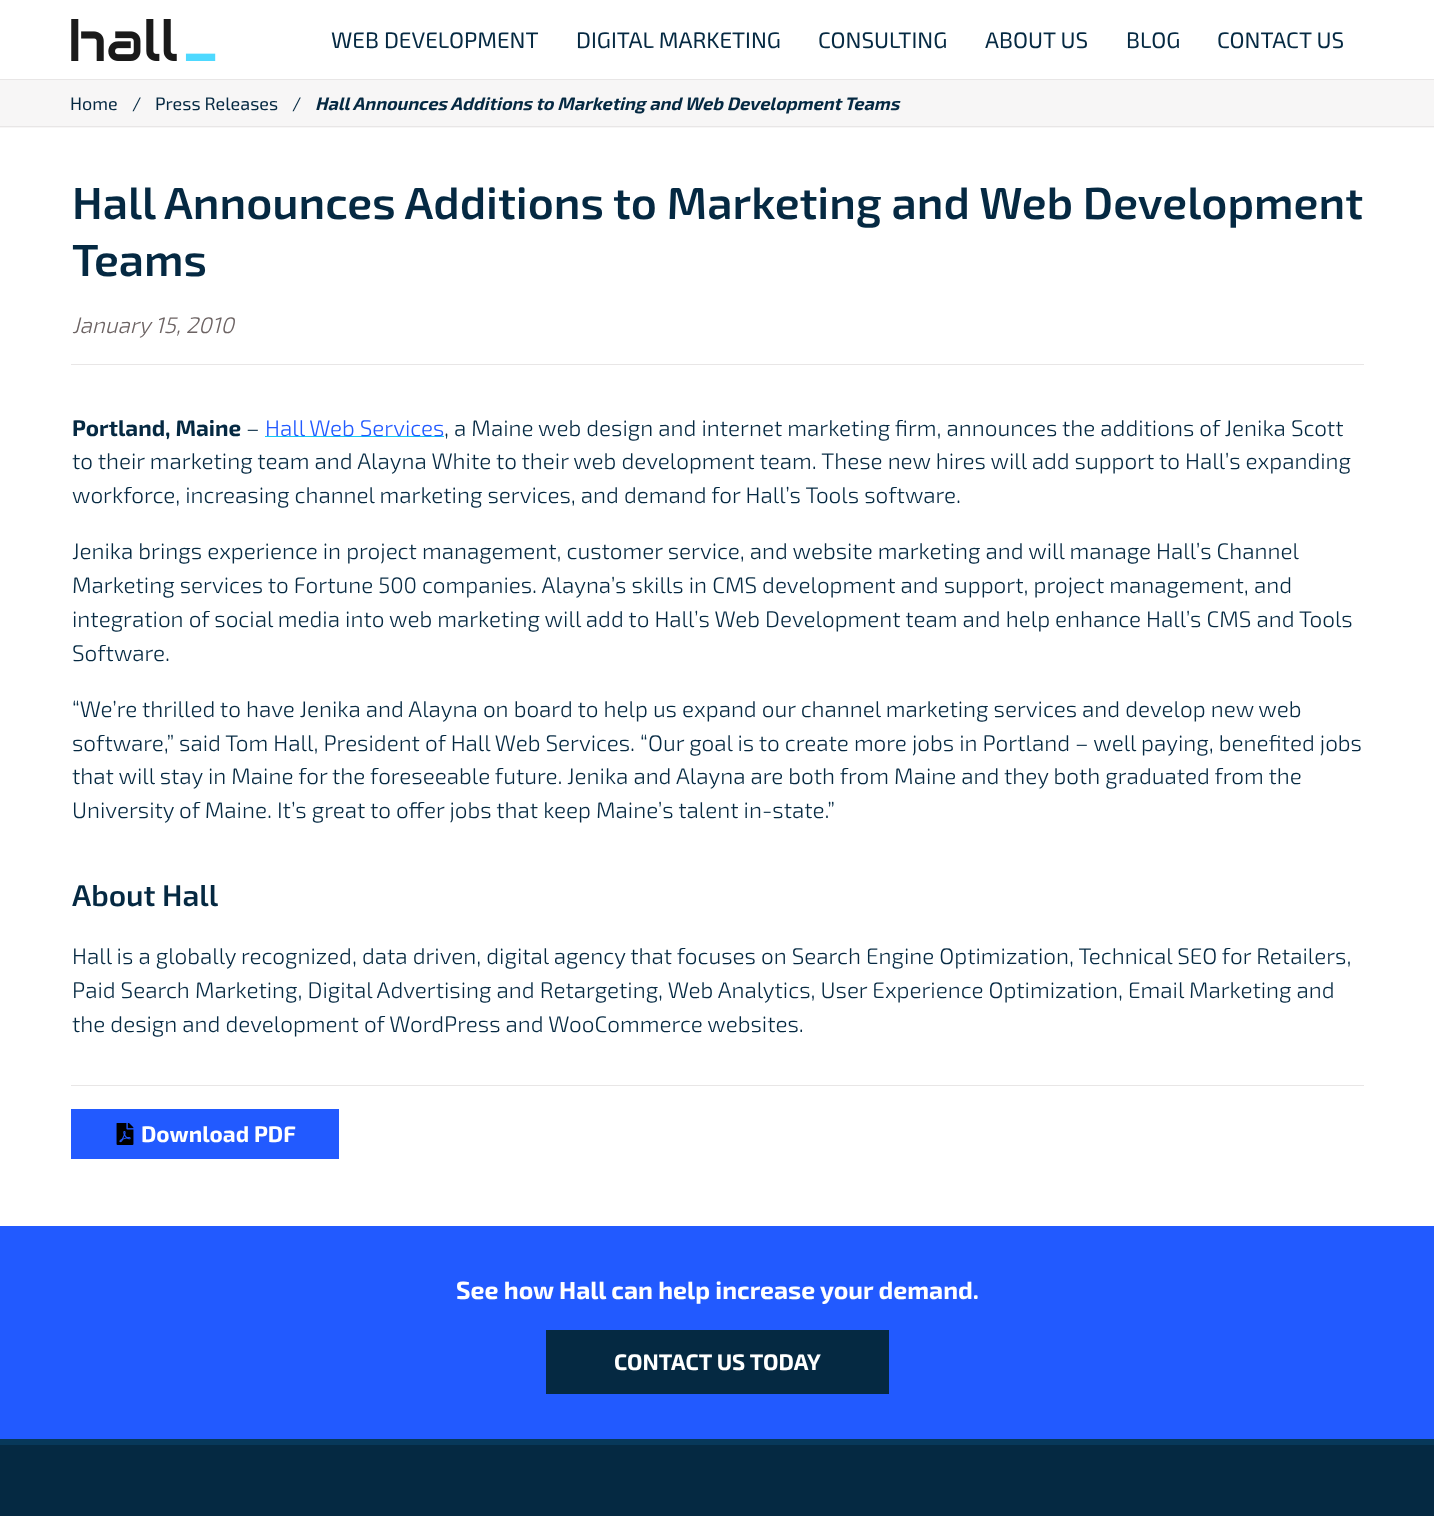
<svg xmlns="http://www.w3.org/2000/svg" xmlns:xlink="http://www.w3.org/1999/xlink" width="1434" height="1516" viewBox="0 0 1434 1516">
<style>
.cls-1{font:22.5px 'Exo 2';fill:#052942}
.cls-2{font:18px 'Exo 2';fill:#052942}
.cls-3{font:italic bold 18px 'Exo 2';fill:#052942}
.cls-4{font:600 45px 'Exo 2';fill:#052942}
.cls-5{font:italic 300 22.5px 'Exo 2';fill:#6c6363}
.cls-6{font:bold 22.5px 'Exo 2';fill:#052942}
.cls-7{font:300 22.5px 'Exo 2';fill:#052942}
.cls-8{font:300 22.5px 'Exo 2';fill:#225aff}
.cls-9{font:600 30px 'Exo 2';fill:#052942}
.cls-10{font:bold 22.5px 'Exo 2';fill:#ffffff}
.cls-11{font:bold 24.75px 'Exo 2';fill:#ffffff}
</style>
<rect width="100%" height="100%" fill="#ffffff"/>
<rect fill="#e8e6e6" x="0" y="79" width="1434" height="1"/>
<image xlink:href="image0.png" x="71" y="19" width="145" height="42"/>
<rect fill="#f7f6f6" x="0" y="80" width="1434" height="48"/>
<rect fill="#e8e6e6" x="0" y="126" width="1434" height="1"/>
<rect fill="#e8e6e6" x="71" y="364" width="1293" height="1"/>
<rect fill="#14caf4" x="265" y="436" width="179" height="1"/>
<rect fill="#e8e6e6" x="71" y="1085" width="1293" height="1"/>
<rect fill="#225aff" x="71" y="1109" width="268" height="50"/>
<image xlink:href="image1.png" x="116" y="1123" width="18" height="22"/>
<rect fill="#225aff" x="0" y="1226" width="1434" height="213"/>
<rect fill="#052942" x="546" y="1330" width="343" height="64"/>
<rect fill="#052942" x="0" y="1445" width="1434" height="71"/>
<rect fill="#07385a" x="0" y="1439" width="1434" height="6"/>
<text class="cls-1" x="331" y="48">WEB DEVELOPMENT</text>
<text class="cls-1" x="576" y="48">DIGITAL MARKETING</text>
<text class="cls-1" x="818" y="48">CONSULTING</text>
<text class="cls-1" x="985" y="48">ABOUT US</text>
<text class="cls-1" x="1126" y="48">BLOG</text>
<text class="cls-1" x="1217" y="48">CONTACT US</text>
<text class="cls-2" x="70" y="110">Home</text>
<text class="cls-2" x="132" y="110">/</text>
<text class="cls-2" x="155" y="110">Press Releases</text>
<text class="cls-2" x="292" y="110">/</text>
<text class="cls-3" x="315" y="110">Hall Announces Additions to Marketing and Web Development Teams</text>
<text class="cls-4"><tspan x="72" y="219">Hall Announces Additions to Marketing and Web Development</tspan><tspan x="72" y="276">Teams</tspan></text>
<text class="cls-5" x="72" y="333">January 15, 2010</text>
<text class="cls-6" x="72" y="436">Portland, Maine</text>
<text class="cls-7" x="246" y="436">–</text>
<text class="cls-8" x="265" y="436">Hall Web Services</text>
<text class="cls-7" x="444" y="436">, a Maine web design and internet marketing firm, announces the additions of Jenika Scott</text>
<text class="cls-7"><tspan x="72" y="469">to their marketing team and Alayna White to their web development team. These new hires will add support to Hall’s expanding</tspan><tspan x="72" y="503">workforce, increasing channel marketing services, and demand for Hall’s Tools software.</tspan></text>
<text class="cls-7"><tspan x="72" y="559">Jenika brings experience in project management, customer service, and website marketing and will manage Hall’s Channel</tspan><tspan x="72" y="593">Marketing services to Fortune 500 companies. Alayna’s skills in CMS development and support, project management, and</tspan><tspan x="72" y="627">integration of social media into web marketing will add to Hall’s Web Development team and help enhance Hall’s CMS and Tools</tspan><tspan x="72" y="661">Software.</tspan></text>
<text class="cls-7"><tspan x="72" y="717">“We’re thrilled to have Jenika and Alayna on board to help us expand our channel marketing services and develop new web</tspan><tspan x="72" y="751">software,” said Tom Hall, President of Hall Web Services. “Our goal is to create more jobs in Portland – well paying, benefited jobs</tspan><tspan x="72" y="784">that will stay in Maine for the foreseeable future. Jenika and Alayna are both from Maine and they both graduated from the</tspan><tspan x="72" y="818">University of Maine. It’s great to offer jobs that keep Maine’s talent in-state.”</tspan></text>
<text class="cls-9" x="72" y="906">About Hall</text>
<text class="cls-7"><tspan x="72" y="964">Hall is a globally recognized, data driven, digital agency that focuses on Search Engine Optimization, Technical SEO for Retailers,</tspan><tspan x="72" y="998">Paid Search Marketing, Digital Advertising and Retargeting, Web Analytics, User Experience Optimization, Email Marketing and</tspan><tspan x="72" y="1032">the design and development of WordPress and WooCommerce websites.</tspan></text>
<text class="cls-10" x="141" y="1142">Download PDF</text>
<text class="cls-11" x="456" y="1299">See how Hall can help increase your demand.</text>
<text class="cls-10" x="614" y="1370">CONTACT US TODAY</text>
</svg>
